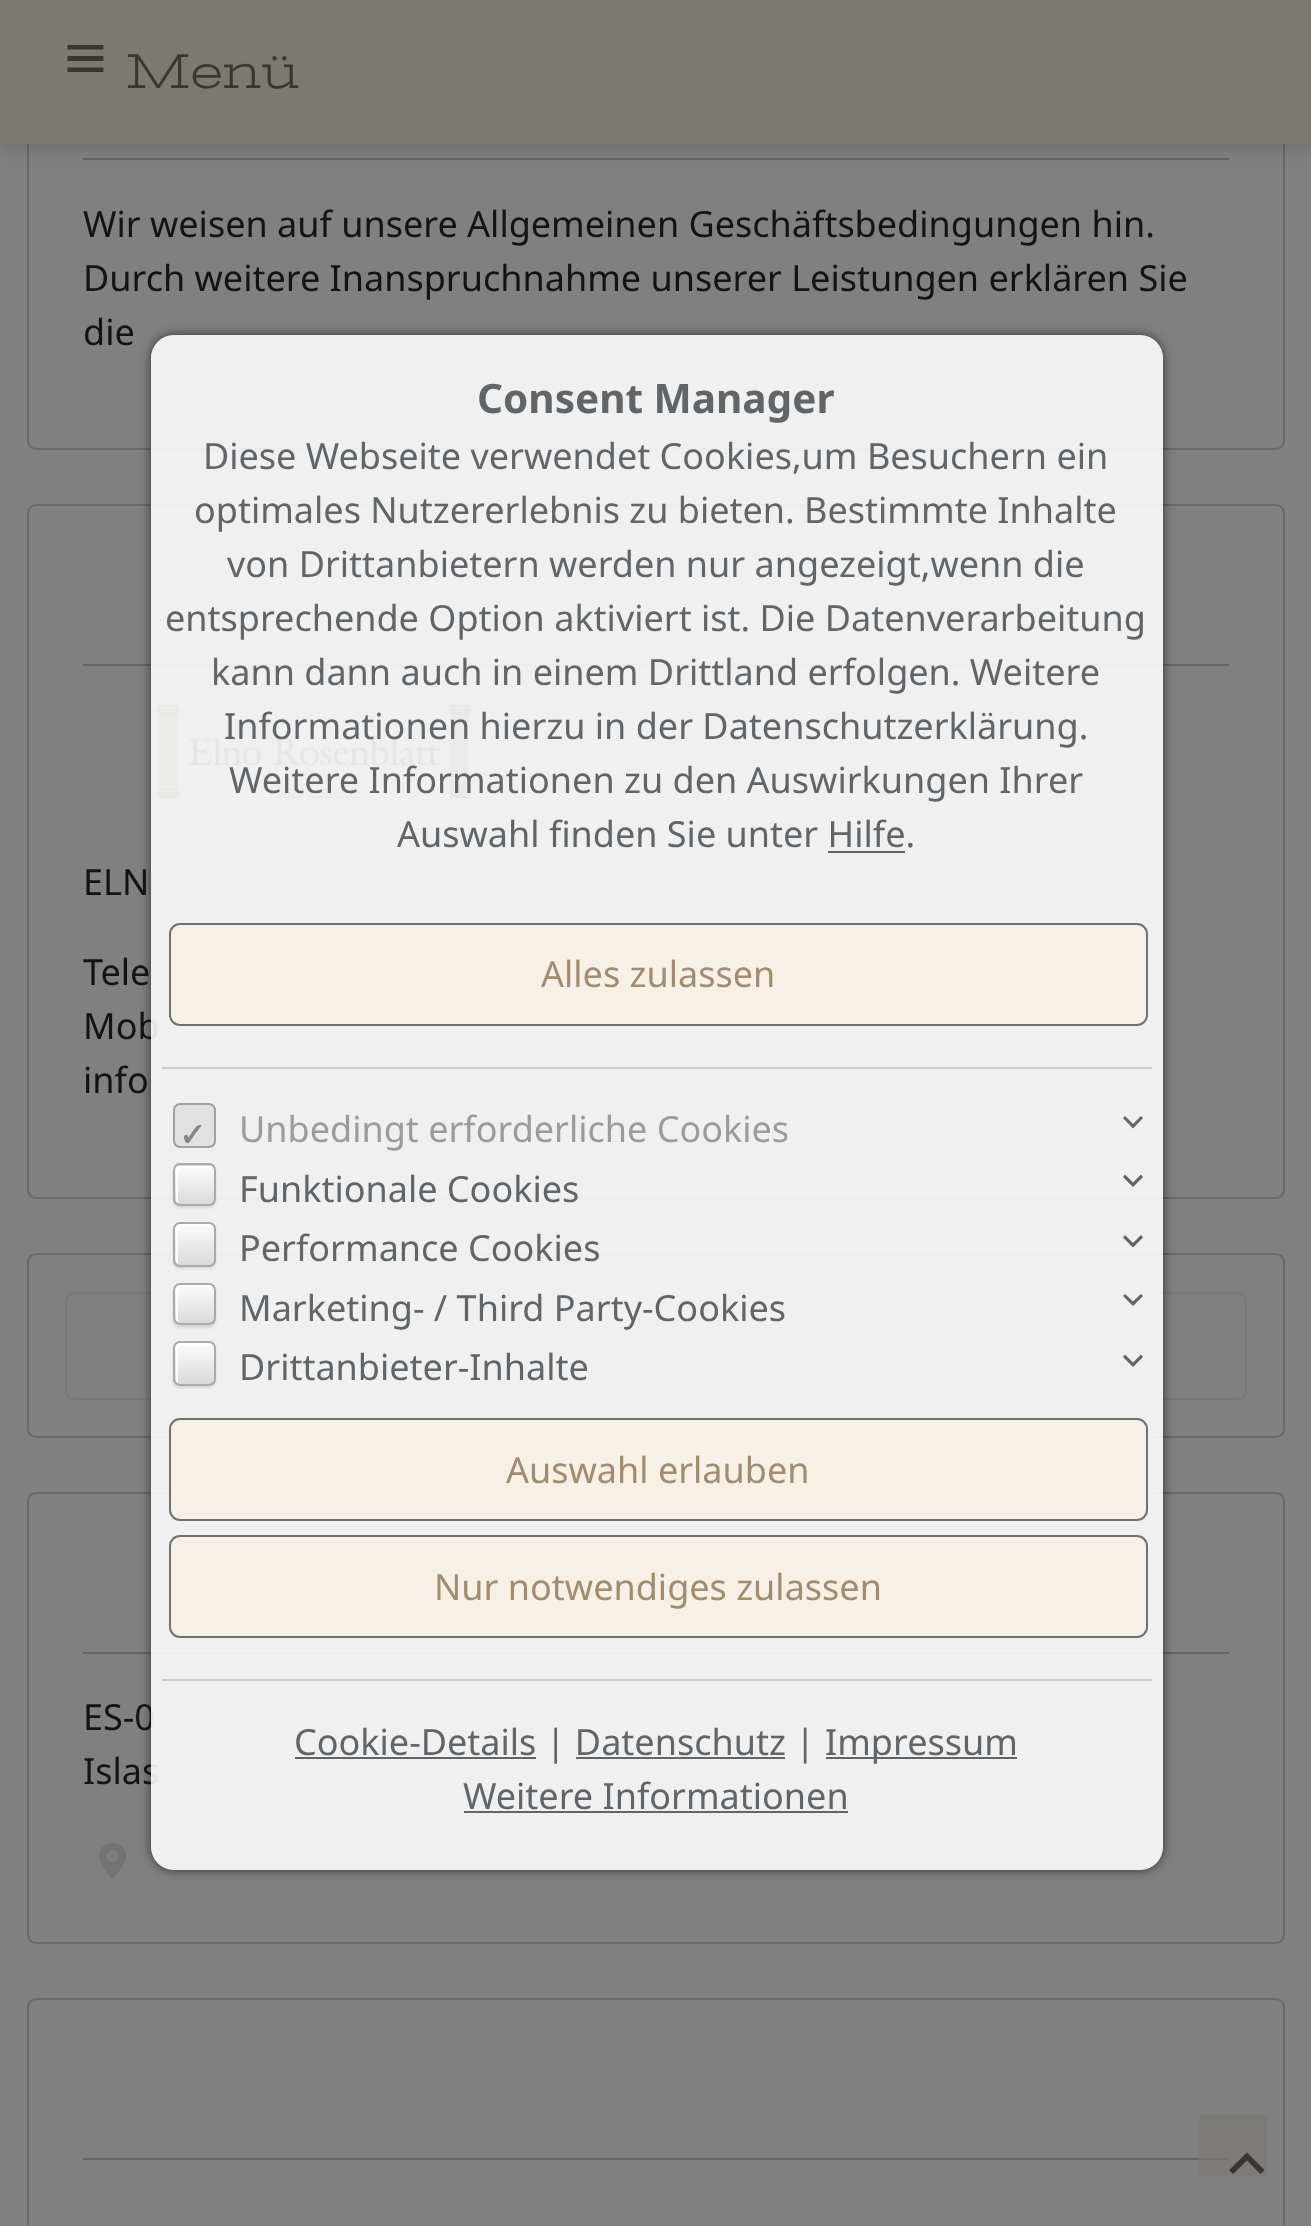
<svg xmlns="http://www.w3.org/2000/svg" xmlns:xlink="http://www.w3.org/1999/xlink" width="1311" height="2226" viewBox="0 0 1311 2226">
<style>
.cls-1{font:50.5px Stint Ultra Expanded;fill:#3b362f}
.cls-2{font:36px Noto Sans;fill:#111315}
.cls-3{font:bold 40.5px Noto Sans;fill:#606569}
.cls-4{font:36px Noto Sans;fill:#606569}
.cls-5{font:36px Noto Sans;fill:#a28c6e}
.cls-6{font:bold 32px DejaVu Sans;fill:#878787}
.cls-7{font:36px Noto Sans;fill:#999c9f}
</style>
<defs>
<clipPath id="clip1"><path d="M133 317H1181V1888H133ZM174 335H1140C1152.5 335 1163 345.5 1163 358V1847C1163 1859.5 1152.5 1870 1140 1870H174C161.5 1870 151 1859.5 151 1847V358C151 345.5 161.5 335 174 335Z" clip-rule="evenodd"/></clipPath>
<clipPath id="clip2"><rect x="173" y="1163" width="43" height="43" rx="7"/></clipPath>
<linearGradient id="g1" gradientUnits="userSpaceOnUse" x1="195" y1="1127" x2="195" y2="1166"><stop offset="0" stop-color="#fcfcfc"/><stop offset="1" stop-color="#dadada"/></linearGradient>
<linearGradient id="g2" gradientUnits="userSpaceOnUse" x1="195" y1="1166" x2="195" y2="1204"><stop offset="0" stop-color="#fcfcfc"/><stop offset="1" stop-color="#dadada"/></linearGradient>
<clipPath id="clip3"><rect x="173" y="1222" width="43" height="45" rx="7"/></clipPath>
<linearGradient id="g3" gradientUnits="userSpaceOnUse" x1="195" y1="1224" x2="195" y2="1265"><stop offset="0" stop-color="#fcfcfc"/><stop offset="1" stop-color="#dadada"/></linearGradient>
<clipPath id="clip4"><rect x="173" y="1283" width="43" height="42" rx="7"/></clipPath>
<linearGradient id="g4" gradientUnits="userSpaceOnUse" x1="195" y1="1285" x2="195" y2="1323"><stop offset="0" stop-color="#fcfcfc"/><stop offset="1" stop-color="#dadada"/></linearGradient>
<clipPath id="clip5"><rect x="173" y="1341" width="43" height="45" rx="7"/></clipPath>
<linearGradient id="g5" gradientUnits="userSpaceOnUse" x1="195" y1="1343" x2="195" y2="1384"><stop offset="0" stop-color="#fcfcfc"/><stop offset="1" stop-color="#dadada"/></linearGradient>
</defs>
<rect width="100%" height="100%" fill="#808080"/>
<rect fill="none" stroke="#000000" stroke-opacity="0.18" stroke-width="2" x="28" y="-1" width="1256" height="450" rx="8"/>
<rect fill="#646565" x="83" y="158" width="1146" height="2"/>
<rect fill="#000000" fill-opacity="0.2" filter="blur(11px)" x="0" y="0" width="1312" height="144"/>
<rect fill="#7c7873" x="0" y="0" width="1311" height="144"/>
<path fill="#3b362f" d="M67.5 72V67.5H103.5V72ZM67.5 45H103.5V49.5H67.5ZM67.5 61V56H103.5V61Z"/>
<rect fill="none" stroke="#696969" stroke-width="2" x="28" y="505" width="1256" height="693" rx="8"/>
<rect fill="#646565" x="83" y="664" width="1146" height="2"/>
<image xlink:href="image0.png" x="155" y="704" width="317" height="95"/>
<rect fill="none" stroke="#000000" stroke-opacity="0.18" stroke-width="2" x="28" y="1254" width="1256" height="183" rx="8"/>
<rect fill="none" stroke="#7c7873" stroke-width="2" x="66" y="1293" width="1180" height="106" rx="8"/>
<rect fill="none" stroke="#000000" stroke-opacity="0.18" stroke-width="2" x="28" y="1493" width="1256" height="450" rx="8"/>
<rect fill="#646565" x="83" y="1652" width="1146" height="2"/>
<image xlink:href="image2.png" x="109" y="1853" width="7" height="7"/>
<image xlink:href="image1.png" x="99" y="1842" width="27" height="37"/>
<rect fill="#7d7b77" x="1199" y="2115" width="68" height="61"/>
<rect fill="none" stroke="#696969" stroke-width="2" x="28" y="1999" width="1256" height="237" rx="8"/>
<rect fill="#646565" x="83" y="2158" width="1116" height="2"/>
<rect fill="#75726f" x="1199" y="2158" width="30" height="2"/>
<g clip-path="url(#clip1)">
<rect fill="#000000" fill-opacity="0.6" filter="blur(5.5px)" x="151" y="335" width="1012" height="1535" rx="23"/>
</g>
<path fill="#3b362f" d="M1260.5 2174L1247 2160.5L1233 2174L1229 2170L1247 2152.5L1264.5 2170Z"/>
<text class="cls-1" x="126" y="88">Menü</text>
<text class="cls-2"><tspan x="83" y="237">Wir weisen auf unsere Allgemeinen Geschäftsbedingungen hin.</tspan><tspan x="83" y="291">Durch weitere Inanspruchnahme unserer Leistungen erklären Sie</tspan><tspan x="83" y="345">die</tspan></text>
<text class="cls-2" x="83" y="895">ELN</text>
<text class="cls-2"><tspan x="83" y="985">Tele</tspan><tspan x="83" y="1039">Mob</tspan><tspan x="83" y="1093">info</tspan></text>
<text class="cls-2"><tspan x="83" y="1730">ES-0</tspan><tspan x="83" y="1784">Islas</tspan></text>
<rect fill="#fcfcfc" fill-opacity="0.9" x="151" y="335" width="1012" height="1535" rx="23"/>
<text class="cls-3" x="477" y="413">Consent Manager</text>
<text class="cls-4" x="203" y="469">Diese Webseite verwendet Cookies,um Besuchern ein</text>
<text class="cls-4" x="194" y="523">optimales Nutzererlebnis zu bieten. Bestimmte Inhalte</text>
<text class="cls-4" x="227" y="577">von Drittanbietern werden nur angezeigt,wenn die</text>
<text class="cls-4" x="165" y="631">entsprechende Option aktiviert ist. Die Datenverarbeitung</text>
<text class="cls-4" x="211" y="685">kann dann auch in einem Drittland erfolgen. Weitere</text>
<text class="cls-4" x="224" y="739">Informationen hierzu in der Datenschutzerklärung.</text>
<text class="cls-4" x="229" y="793">Weitere Informationen zu den Auswirkungen Ihrer</text>
<text class="cls-4" x="397" y="847">Auswahl finden Sie unter Hilfe.</text>
<rect fill="#606569" x="828" y="851" width="77" height="2"/>
<rect fill="#f7f0e6" stroke="#707070" stroke-width="2" x="170" y="924" width="977" height="101" rx="10"/>
<text class="cls-5" x="541" y="987">Alles zulassen</text>
<rect fill="#606569" fill-opacity="0.25" x="162" y="1067" width="990" height="2"/>
<rect fill="#e1e1e1" x="173" y="1103" width="43" height="45" rx="7"/>
<rect fill="none" stroke="#606060" stroke-opacity="0.5" stroke-width="2" x="174" y="1104" width="41" height="43" rx="6"/>
<text class="cls-6" x="179" y="1146">✓</text>
<text class="cls-7" x="239" y="1142">Unbedingt erforderliche Cookies</text>
<path fill="#606569" d="M1141 1116L1143 1118L1133 1128.5L1123 1118L1125 1116L1133 1124Z"/>
<rect fill="#000000" fill-opacity="0.1" filter="blur(1px)" x="173" y="1166" width="43" height="42" rx="7"/>
<g clip-path="url(#clip2)">
<rect fill="url(#g1)" x="173" y="1163" width="43" height="3"/>
<rect fill="url(#g2)" x="173" y="1166" width="43" height="38"/>
</g>
<path fill="#ffffff" d="M182 1168H213C212.5 1167 210.5 1166 209 1166H181C178 1166 176 1168 176 1171V1199C176 1200.5 177 1202.5 178 1203V1177C178 1174 177 1168 182 1168Z"/>
<rect fill="none" stroke="#aaaaaa" stroke-width="2" x="174" y="1164" width="41" height="41" rx="6"/>
<text class="cls-4" x="239" y="1202">Funktionale Cookies</text>
<path fill="#606569" d="M1141 1174.5L1143 1177L1133 1187L1123 1177L1125 1174.5L1133 1182.5Z"/>
<rect fill="#000000" fill-opacity="0.1" filter="blur(1px)" x="173" y="1224" width="43" height="45" rx="7"/>
<g clip-path="url(#clip3)">
<rect fill="url(#g3)" x="173" y="1224" width="43" height="41"/>
</g>
<path fill="#ffffff" d="M182 1226H213C211 1222 203 1224 200 1224C171 1224 176 1220 176 1250C176 1253 174 1262 178 1264V1236C178 1233 177 1226 182 1226Z"/>
<rect fill="none" stroke="#aaaaaa" stroke-width="2" x="174" y="1223" width="41" height="43" rx="6"/>
<text class="cls-4" x="239" y="1261">Performance Cookies</text>
<path fill="#606569" d="M1141 1235L1143 1237.5L1133 1247.5L1123 1237.5L1125 1235L1133 1243Z"/>
<rect fill="#000000" fill-opacity="0.1" filter="blur(1px)" x="173" y="1285" width="43" height="43" rx="7"/>
<g clip-path="url(#clip4)">
<rect fill="url(#g4)" x="173" y="1285" width="43" height="38"/>
</g>
<path fill="#ffffff" d="M182 1287H213C212.5 1286 210.5 1285 209 1285H181C178 1285 176 1287 176 1290V1318C176 1319.5 177 1321.5 178 1322V1297C178 1294 177 1287 182 1287Z"/>
<rect fill="none" stroke="#aaaaaa" stroke-width="2" x="174" y="1284" width="41" height="40" rx="6"/>
<text class="cls-4" x="239" y="1321">Marketing- / Third Party-Cookies</text>
<path fill="#606569" d="M1141 1294L1143 1296L1133 1306L1123 1296L1125 1294L1133 1301.5Z"/>
<rect fill="#000000" fill-opacity="0.1" filter="blur(1px)" x="173" y="1343" width="43" height="45" rx="7"/>
<g clip-path="url(#clip5)">
<rect fill="url(#g5)" x="173" y="1343" width="43" height="41"/>
</g>
<path fill="#ffffff" d="M182 1346H212L214 1347C213 1344 211 1343 209 1343H181C178 1343 176 1345 176 1348V1379C176 1381 177 1382 178 1383V1355C178 1352 177 1346 182 1346Z"/>
<rect fill="none" stroke="#aaaaaa" stroke-width="2" x="174" y="1342" width="41" height="43" rx="6"/>
<text class="cls-4" x="239" y="1380">Drittanbieter-Inhalte</text>
<path fill="#606569" d="M1141 1354.5L1143 1357L1133 1367L1123 1357L1125 1354.5L1133 1362.5Z"/>
<rect fill="#f7f0e6" stroke="#707070" stroke-width="2" x="170" y="1419" width="977" height="101" rx="10"/>
<text class="cls-5" x="506" y="1483">Auswahl erlauben</text>
<rect fill="#f7f0e6" stroke="#707070" stroke-width="2" x="170" y="1536" width="977" height="101" rx="10"/>
<text class="cls-5" x="434" y="1600">Nur notwendiges zulassen</text>
<rect fill="#cccdce" x="162" y="1679" width="990" height="2"/>
<rect fill="#606569" x="295" y="1757" width="241" height="2"/>
<text class="cls-4" x="294" y="1755">Cookie-Details | Datenschutz |</text>
<rect fill="#606569" x="826" y="1757" width="191" height="2"/>
<text class="cls-4" x="825" y="1755">Impressum</text>
<rect fill="#606569" x="576" y="1757" width="209" height="2"/>
<text class="cls-4" x="463" y="1809">Weitere Informationen</text>
<rect fill="#606569" x="464" y="1811" width="384" height="2"/>
</svg>
